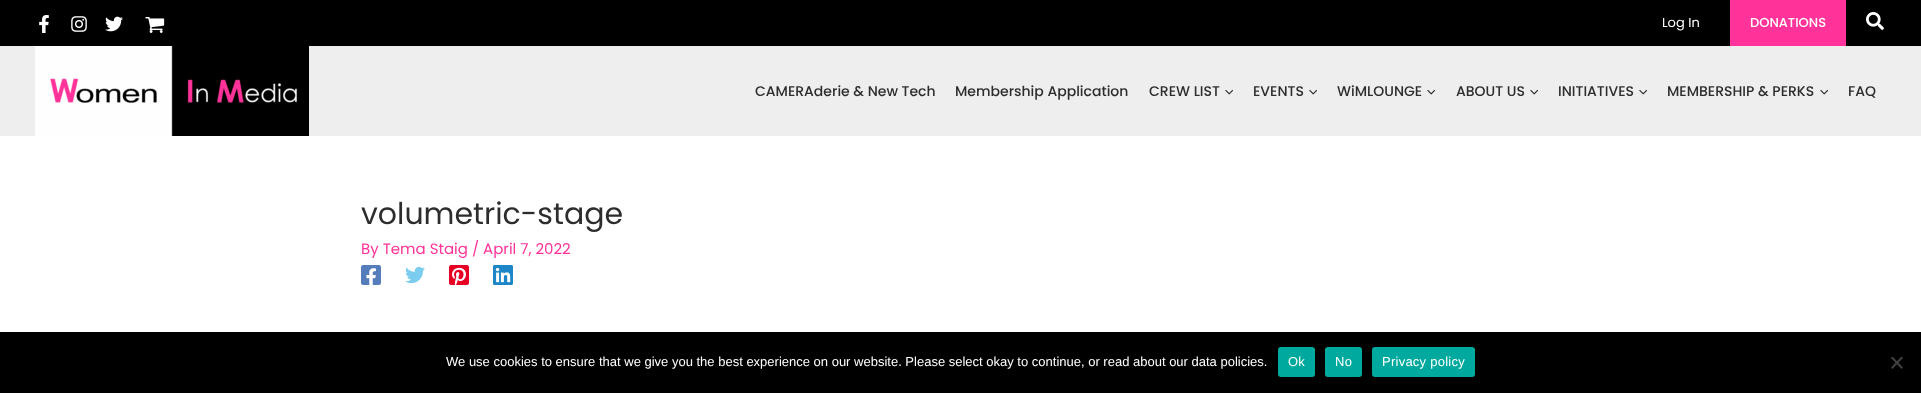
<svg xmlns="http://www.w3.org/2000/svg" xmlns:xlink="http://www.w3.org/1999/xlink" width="1921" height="393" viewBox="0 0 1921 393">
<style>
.cls-1{font:13px Poppins;fill:#ffffff}
.cls-2{font:500 13px Poppins;fill:#ffffff}
.cls-3{font:500 14px Poppins;fill:#2d2d2d}
.cls-4{font:30px Poppins;fill:#2d2d2d}
.cls-5{font:15px Poppins;fill:#ff3399}
.cls-6{font:13px Liberation Sans;fill:#ffffff}
.cls-7{font:13px Liberation Sans;letter-spacing:0.25px;fill:#ffffff}
</style>
<rect width="100%" height="100%" fill="#ffffff"/>
<rect fill="#000000" x="0" y="0" width="1921" height="46"/>
<image xlink:href="image0.png" x="39" y="15" width="10" height="18"/>
<image xlink:href="image1.png" x="71" y="16" width="16" height="16"/>
<image xlink:href="image2.png" x="105" y="16" width="18" height="16"/>
<image xlink:href="image3.png" x="145" y="17" width="20" height="16"/>
<rect fill="#ff3399" x="1730" y="0" width="116" height="46"/>
<image xlink:href="image4.png" x="1866" y="12" width="18" height="18"/>
<rect fill="#eeeeee" x="0" y="46" width="1921" height="90"/>
<image xlink:href="image5.png" x="35" y="46" width="274" height="90"/>
<image xlink:href="image6.png" x="1225" y="89" width="8" height="6"/>
<image xlink:href="image6.png" x="1309" y="89" width="8" height="6"/>
<image xlink:href="image7.png" x="1427" y="89" width="9" height="6"/>
<image xlink:href="image6.png" x="1530" y="89" width="8" height="6"/>
<image xlink:href="image6.png" x="1639" y="89" width="8" height="6"/>
<image xlink:href="image6.png" x="1820" y="89" width="8" height="6"/>
<image xlink:href="image8.png" x="361" y="265" width="20" height="20"/>
<image xlink:href="image9.png" x="405" y="266" width="20" height="18"/>
<image xlink:href="image10.png" x="449" y="265" width="20" height="20"/>
<image xlink:href="image11.png" x="493" y="265" width="20" height="20"/>
<rect fill="#000000" x="0" y="332" width="1921" height="61"/>
<rect fill="#00a99d" x="1278" y="347" width="37" height="30" rx="3"/>
<rect fill="#00a99d" x="1325" y="347" width="37" height="30" rx="3"/>
<rect fill="#00a99d" x="1372" y="347" width="103" height="30" rx="3"/>
<path fill="#404040" d="M1901.5 356.5L1903 358L1892.5 369L1891 367.5Z"/>
<path fill="#404040" d="M1891 358L1892.5 356.5L1903 367.5L1901.5 369Z"/>
<text class="cls-1" x="1662" y="27">Log In</text>
<text class="cls-2" x="1750" y="27">DONATIONS</text>
<text class="cls-3" x="755" y="96">CAMERAderie &amp; New Tech</text>
<text class="cls-3" x="955" y="96">Membership Application</text>
<text class="cls-3" x="1149" y="96">CREW LIST</text>
<text class="cls-3" x="1253" y="96">EVENTS</text>
<text class="cls-3" x="1337" y="96">WiMLOUNGE</text>
<text class="cls-3" x="1456" y="96">ABOUT US</text>
<text class="cls-3" x="1558" y="96">INITIATIVES</text>
<text class="cls-3" x="1667" y="96">MEMBERSHIP &amp; PERKS</text>
<text class="cls-3" x="1848" y="96">FAQ</text>
<text class="cls-4" x="361" y="224">volumetric-stage</text>
<text class="cls-5" x="361" y="254">By Tema Staig / April 7, 2022</text>
<text class="cls-6" x="446" y="366">We use cookies to ensure that we give you the best experience on our website. Please select okay to continue, or read about our data policies.</text>
<text class="cls-7" x="1288" y="366">Ok</text>
<text class="cls-7" x="1335" y="366">No</text>
<text class="cls-7" x="1382" y="366">Privacy policy</text>
</svg>
